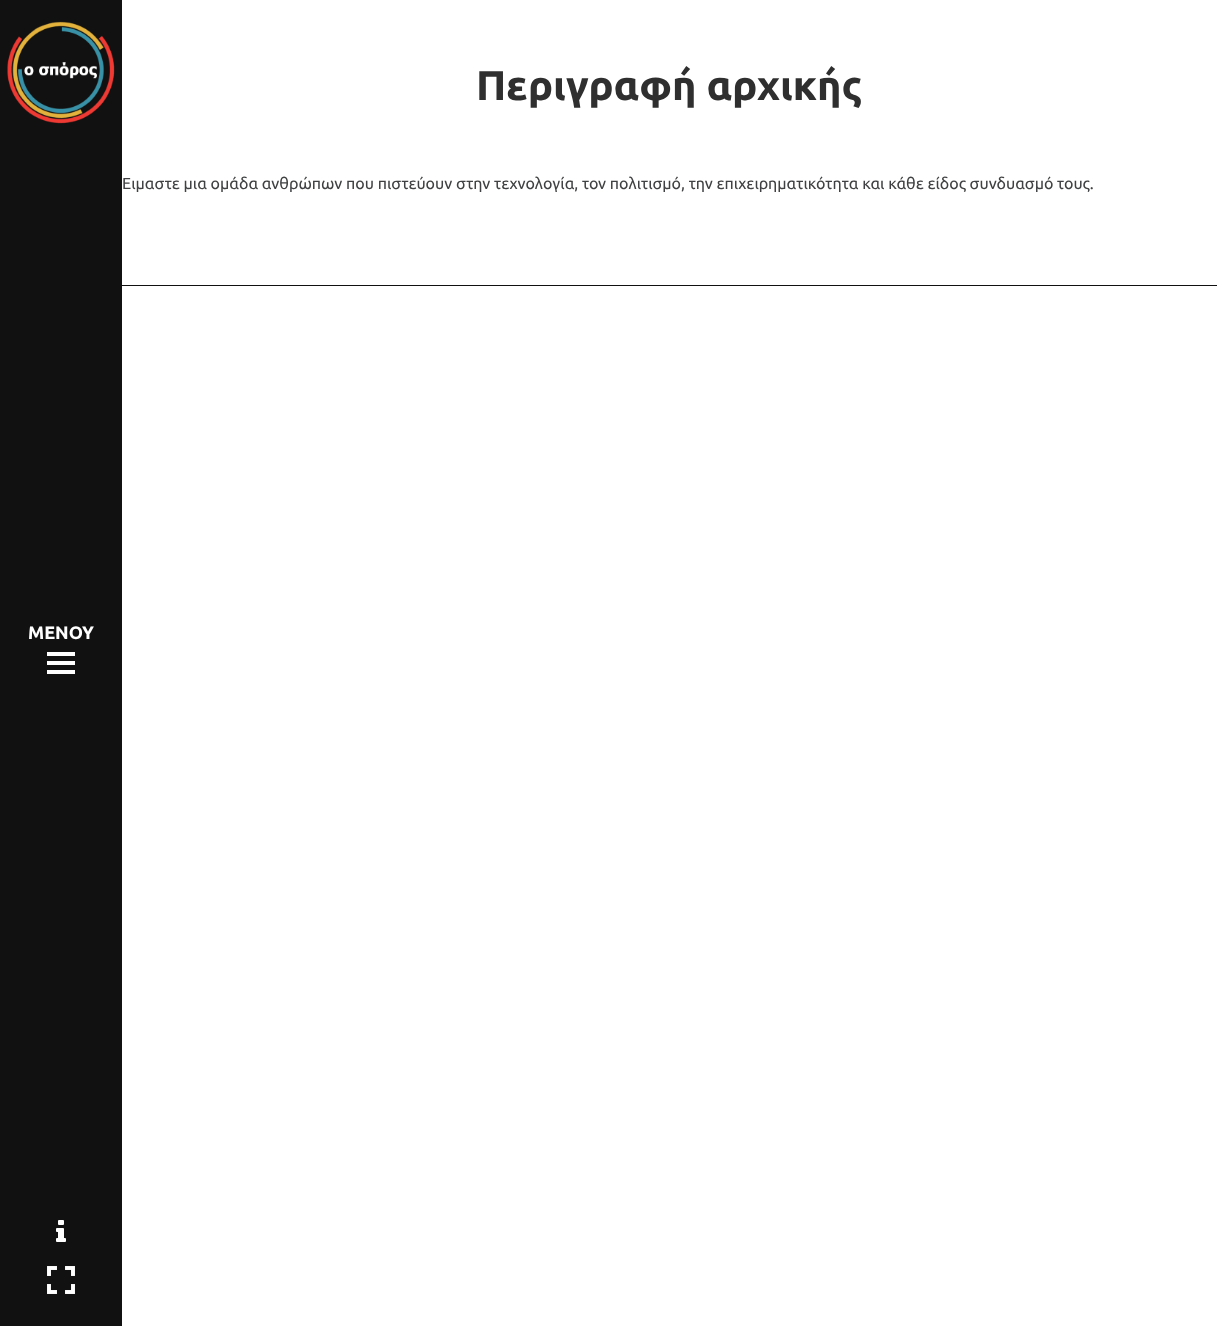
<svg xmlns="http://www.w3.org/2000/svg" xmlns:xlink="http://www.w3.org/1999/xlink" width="1217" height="1326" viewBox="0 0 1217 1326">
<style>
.cls-1{font:bold 41.5px Ubuntu;fill:#2f2f2f}
.cls-2{font:16px Ubuntu;fill:#404142}
.cls-3{font:bold 18px Ubuntu;fill:#ffffff}
</style>
<rect width="100%" height="100%" fill="#ffffff"/>
<rect fill="#111111" x="122" y="285" width="1095" height="1"/>
<rect fill="#111111" x="0" y="0" width="122" height="1326"/>
<image xlink:href="image0.png" x="7" y="21" width="108" height="103"/>
<rect fill="#ffffff" x="47" y="652" width="28" height="4"/>
<rect fill="#ffffff" x="47" y="661" width="28" height="4"/>
<rect fill="#ffffff" x="47" y="670" width="28" height="4"/>
<image xlink:href="image1.png" x="56" y="1220" width="10" height="22"/>
<image xlink:href="image2.png" x="47" y="1266" width="28" height="28"/>
<text class="cls-1" x="476" y="100">Περιγραφή αρχικής</text>
<text class="cls-2" x="122" y="189">Ειμαστε μια ομάδα ανθρώπων που πιστεύουν στην τεχνολογία, τον πολιτισμό, την επιχειρηματικότητα και κάθε είδος συνδυασμό τους.</text>
<text class="cls-3" x="28" y="639">MENOY</text>
</svg>
